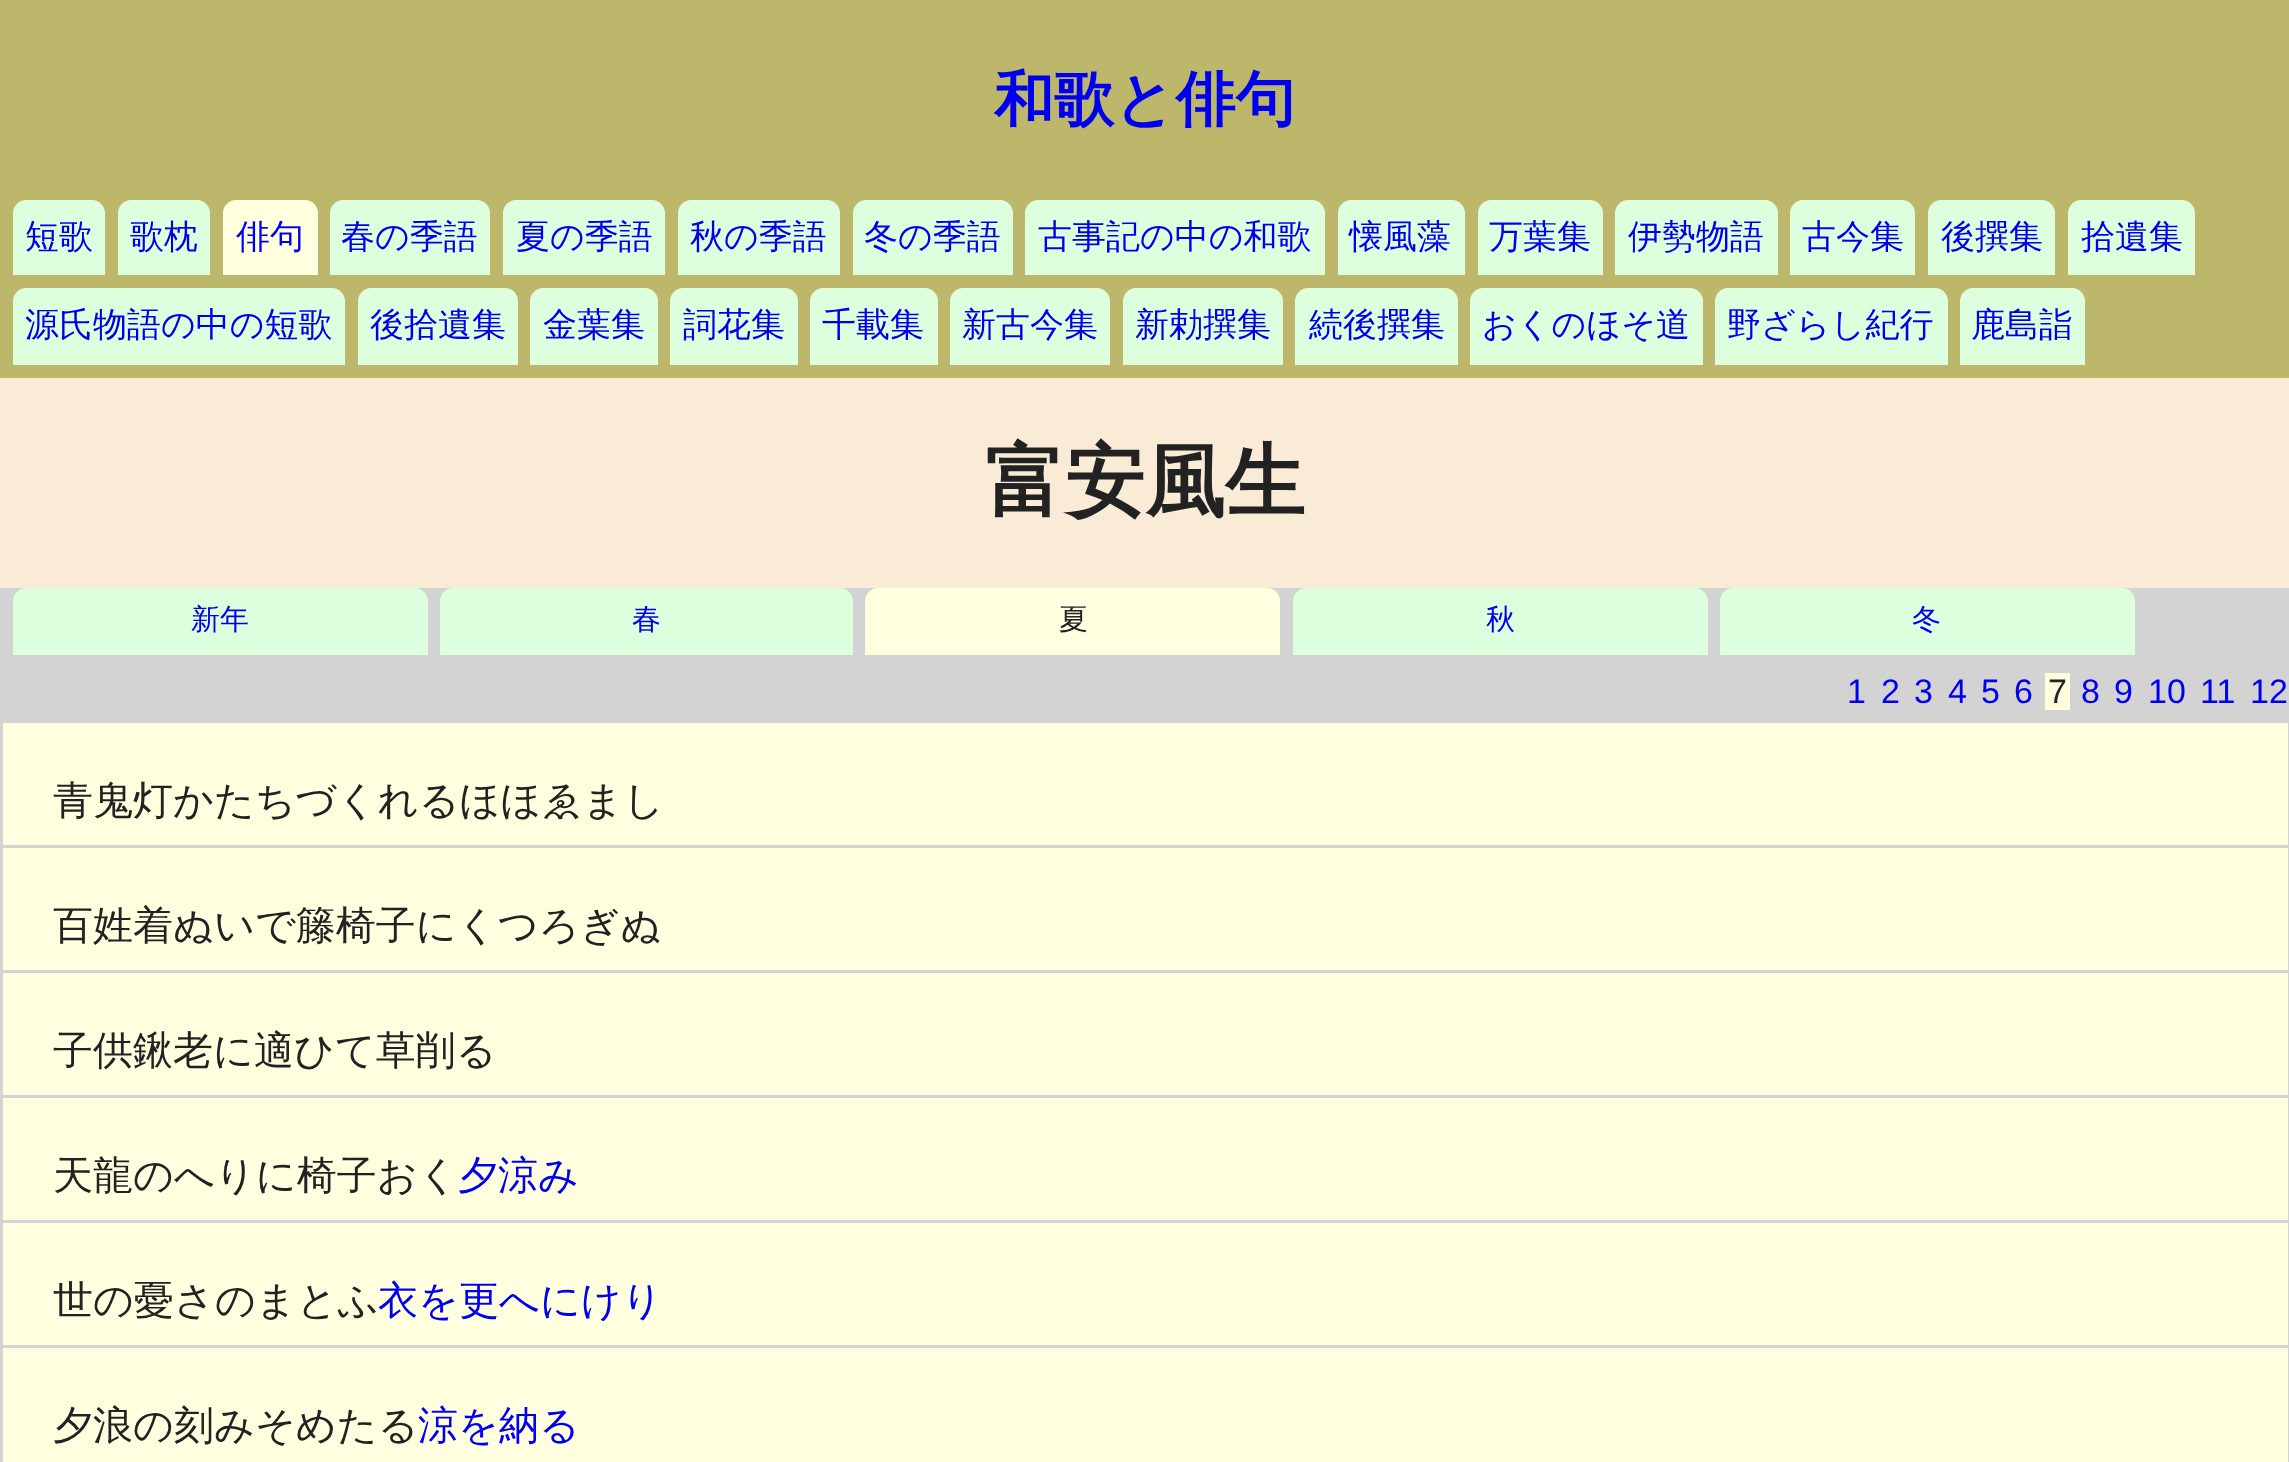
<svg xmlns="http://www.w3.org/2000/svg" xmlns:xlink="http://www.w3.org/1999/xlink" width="2289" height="1462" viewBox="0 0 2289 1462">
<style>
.cls-1{font:bold 60px WenQuanYi Zen Hei;fill:#0000ee}
.cls-2{font:500 34px WenQuanYi Zen Hei;fill:#0000ee}
.cls-3{font:bold 80px WenQuanYi Zen Hei;fill:#222222}
.cls-4{font:500 29px WenQuanYi Zen Hei;fill:#0000ee}
.cls-5{font:500 29px WenQuanYi Zen Hei;fill:#222222}
.cls-6{font:34px Liberation Sans;fill:#0000ee}
.cls-7{font:34px Liberation Sans;fill:#222222}
.cls-8{font:500 40px WenQuanYi Zen Hei;fill:#222222}
.cls-9{font:500 40px WenQuanYi Zen Hei;fill:#0000ee}
</style>
<rect width="100%" height="100%" fill="#d3d3d3"/>
<rect fill="#bdb76b" x="0" y="0" width="2289" height="378"/>
<path fill="#ddffdd" d="M26 200H92C99 200 105 206 105 213V275H13V213C13 206 19 200 26 200Z"/>
<path fill="#ddffdd" d="M131 200H197C204 200 210 206 210 213V275H118V213C118 206 124 200 131 200Z"/>
<path fill="#ffffe0" d="M236 200H305C312 200 318 206 318 213V275H223V213C223 206 229 200 236 200Z"/>
<path fill="#ddffdd" d="M343 200H477C484 200 490 206 490 213V275H330V213C330 206 336 200 343 200Z"/>
<path fill="#ddffdd" d="M516 200H652C659 200 665 206 665 213V275H503V213C503 206 509 200 516 200Z"/>
<path fill="#ddffdd" d="M691 200H827C834 200 840 206 840 213V275H678V213C678 206 684 200 691 200Z"/>
<path fill="#ddffdd" d="M866 200H1000C1007 200 1013 206 1013 213V275H853V213C853 206 859 200 866 200Z"/>
<path fill="#ddffdd" d="M1038 200H1312C1319 200 1325 206 1325 213V275H1025V213C1025 206 1031 200 1038 200Z"/>
<path fill="#ddffdd" d="M1351 200H1452C1459 200 1465 206 1465 213V275H1338V213C1338 206 1344 200 1351 200Z"/>
<path fill="#ddffdd" d="M1491 200H1590C1597 200 1603 206 1603 213V275H1478V213C1478 206 1484 200 1491 200Z"/>
<path fill="#ddffdd" d="M1628 200H1765C1772 200 1778 206 1778 213V275H1615V213C1615 206 1621 200 1628 200Z"/>
<path fill="#ddffdd" d="M1803 200H1902C1909 200 1915 206 1915 213V275H1790V213C1790 206 1796 200 1803 200Z"/>
<path fill="#ddffdd" d="M1941 200H2042C2049 200 2055 206 2055 213V275H1928V213C1928 206 1934 200 1941 200Z"/>
<path fill="#ddffdd" d="M2081 200H2182C2189 200 2195 206 2195 213V275H2068V213C2068 206 2074 200 2081 200Z"/>
<path fill="#ddffdd" d="M26 288H332C339 288 345 294 345 301V365H13V301C13 294 19 288 26 288Z"/>
<path fill="#ddffdd" d="M371 288H505C512 288 518 294 518 301V365H358V301C358 294 364 288 371 288Z"/>
<path fill="#ddffdd" d="M543 288H645C652 288 658 294 658 301V365H530V301C530 294 536 288 543 288Z"/>
<path fill="#ddffdd" d="M683 288H785C792 288 798 294 798 301V365H670V301C670 294 676 288 683 288Z"/>
<path fill="#ddffdd" d="M823 288H925C932 288 938 294 938 301V365H810V301C810 294 816 288 823 288Z"/>
<path fill="#ddffdd" d="M963 288H1097C1104 288 1110 294 1110 301V365H950V301C950 294 956 288 963 288Z"/>
<path fill="#ddffdd" d="M1136 288H1270C1277 288 1283 294 1283 301V365H1123V301C1123 294 1129 288 1136 288Z"/>
<path fill="#ddffdd" d="M1308 288H1445C1452 288 1458 294 1458 301V365H1295V301C1295 294 1301 288 1308 288Z"/>
<path fill="#ddffdd" d="M1483 288H1690C1697 288 1703 294 1703 301V365H1470V301C1470 294 1476 288 1483 288Z"/>
<path fill="#ddffdd" d="M1728 288H1935C1942 288 1948 294 1948 301V365H1715V301C1715 294 1721 288 1728 288Z"/>
<path fill="#ddffdd" d="M1973 288H2072C2079 288 2085 294 2085 301V365H1960V301C1960 294 1966 288 1973 288Z"/>
<rect fill="#faebd7" x="0" y="378" width="2289" height="210"/>
<path fill="#ddffdd" d="M26 588H415C422 588 428 594 428 601V655H13V601C13 594 19 588 26 588Z"/>
<path fill="#ddffdd" d="M453 588H840C847 588 853 594 853 601V655H440V601C440 594 446 588 453 588Z"/>
<path fill="#ffffe0" d="M878 588H1267C1274 588 1280 594 1280 601V655H865V601C865 594 871 588 878 588Z"/>
<path fill="#ddffdd" d="M1306 588H1695C1702 588 1708 594 1708 601V655H1293V601C1293 594 1299 588 1306 588Z"/>
<path fill="#ddffdd" d="M1733 588H2122C2129 588 2135 594 2135 601V655H1720V601C1720 594 1726 588 1733 588Z"/>
<rect fill="#ffffe0" x="2045" y="673" width="25" height="37"/>
<rect fill="#ffffe0" x="3" y="723" width="2285" height="122"/>
<rect fill="#ffffe0" x="3" y="848" width="2285" height="122"/>
<rect fill="#ffffe0" x="3" y="973" width="2285" height="122"/>
<rect fill="#ffffe0" x="3" y="1098" width="2285" height="122"/>
<rect fill="#ffffe0" x="3" y="1223" width="2285" height="122"/>
<rect fill="#ffffe0" x="3" y="1348" width="2285" height="114"/>
<text class="cls-1" x="994" y="120">和歌と俳句</text>
<text class="cls-2" x="25" y="248">短歌</text>
<text class="cls-2" x="130" y="248">歌枕</text>
<text class="cls-2" x="236" y="248">俳句</text>
<text class="cls-2" x="341" y="248">春の季語</text>
<text class="cls-2" x="516" y="248">夏の季語</text>
<text class="cls-2" x="690" y="248">秋の季語</text>
<text class="cls-2" x="864" y="248">冬の季語</text>
<text class="cls-2" x="1038" y="248">古事記の中の和歌</text>
<text class="cls-2" x="1349" y="248">懐風藻</text>
<text class="cls-2" x="1489" y="248">万葉集</text>
<text class="cls-2" x="1628" y="248">伊勢物語</text>
<text class="cls-2" x="1802" y="248">古今集</text>
<text class="cls-2" x="1941" y="248">後撰集</text>
<text class="cls-2" x="2081" y="248">拾遺集</text>
<text class="cls-2" x="25" y="336">源氏物語の中の短歌</text>
<text class="cls-2" x="370" y="336">後拾遺集</text>
<text class="cls-2" x="543" y="336">金葉集</text>
<text class="cls-2" x="683" y="336">詞花集</text>
<text class="cls-2" x="822" y="336">千載集</text>
<text class="cls-2" x="962" y="336">新古今集</text>
<text class="cls-2" x="1135" y="336">新勅撰集</text>
<text class="cls-2" x="1309" y="336">続後撰集</text>
<text class="cls-2" x="1482" y="336">おくのほそ道</text>
<text class="cls-2" x="1727" y="336">野ざらし紀行</text>
<text class="cls-2" x="1971" y="336">鹿島詣</text>
<text class="cls-3" x="985" y="509">富安風生</text>
<text class="cls-4" x="191" y="629">新年</text>
<text class="cls-4" x="632" y="629">春</text>
<text class="cls-5" x="1059" y="629">夏</text>
<text class="cls-4" x="1486" y="629">秋</text>
<text class="cls-4" x="1912" y="629">冬</text>
<text class="cls-6" x="1847" y="703">1</text>
<text class="cls-6" x="1881" y="703">2</text>
<text class="cls-6" x="1914" y="703">3</text>
<text class="cls-6" x="1948" y="703">4</text>
<text class="cls-6" x="1981" y="703">5</text>
<text class="cls-6" x="2014" y="703">6</text>
<text class="cls-7" x="2048" y="703">7</text>
<text class="cls-6" x="2081" y="703">8</text>
<text class="cls-6" x="2114" y="703">9</text>
<text class="cls-6" x="2148" y="703">10</text>
<text class="cls-6" x="2200" y="703">11</text>
<text class="cls-6" x="2250" y="703">12</text>
<text class="cls-8" x="53" y="814">青鬼灯かたちづくれるほほゑまし</text>
<text class="cls-8" x="53" y="939">百姓着ぬいで籐椅子にくつろぎぬ</text>
<text class="cls-8" x="53" y="1064">子供鍬老に適ひて草削る</text>
<text class="cls-8" x="53" y="1189">天龍のへりに椅子おく</text>
<text class="cls-9" x="458" y="1189">夕涼み</text>
<text class="cls-8" x="53" y="1314">世の憂さのまとふ</text>
<text class="cls-9" x="378" y="1314">衣を更へにけり</text>
<text class="cls-8" x="53" y="1439">夕浪の刻みそめたる</text>
<text class="cls-9" x="418" y="1439">涼を納る</text>
</svg>
